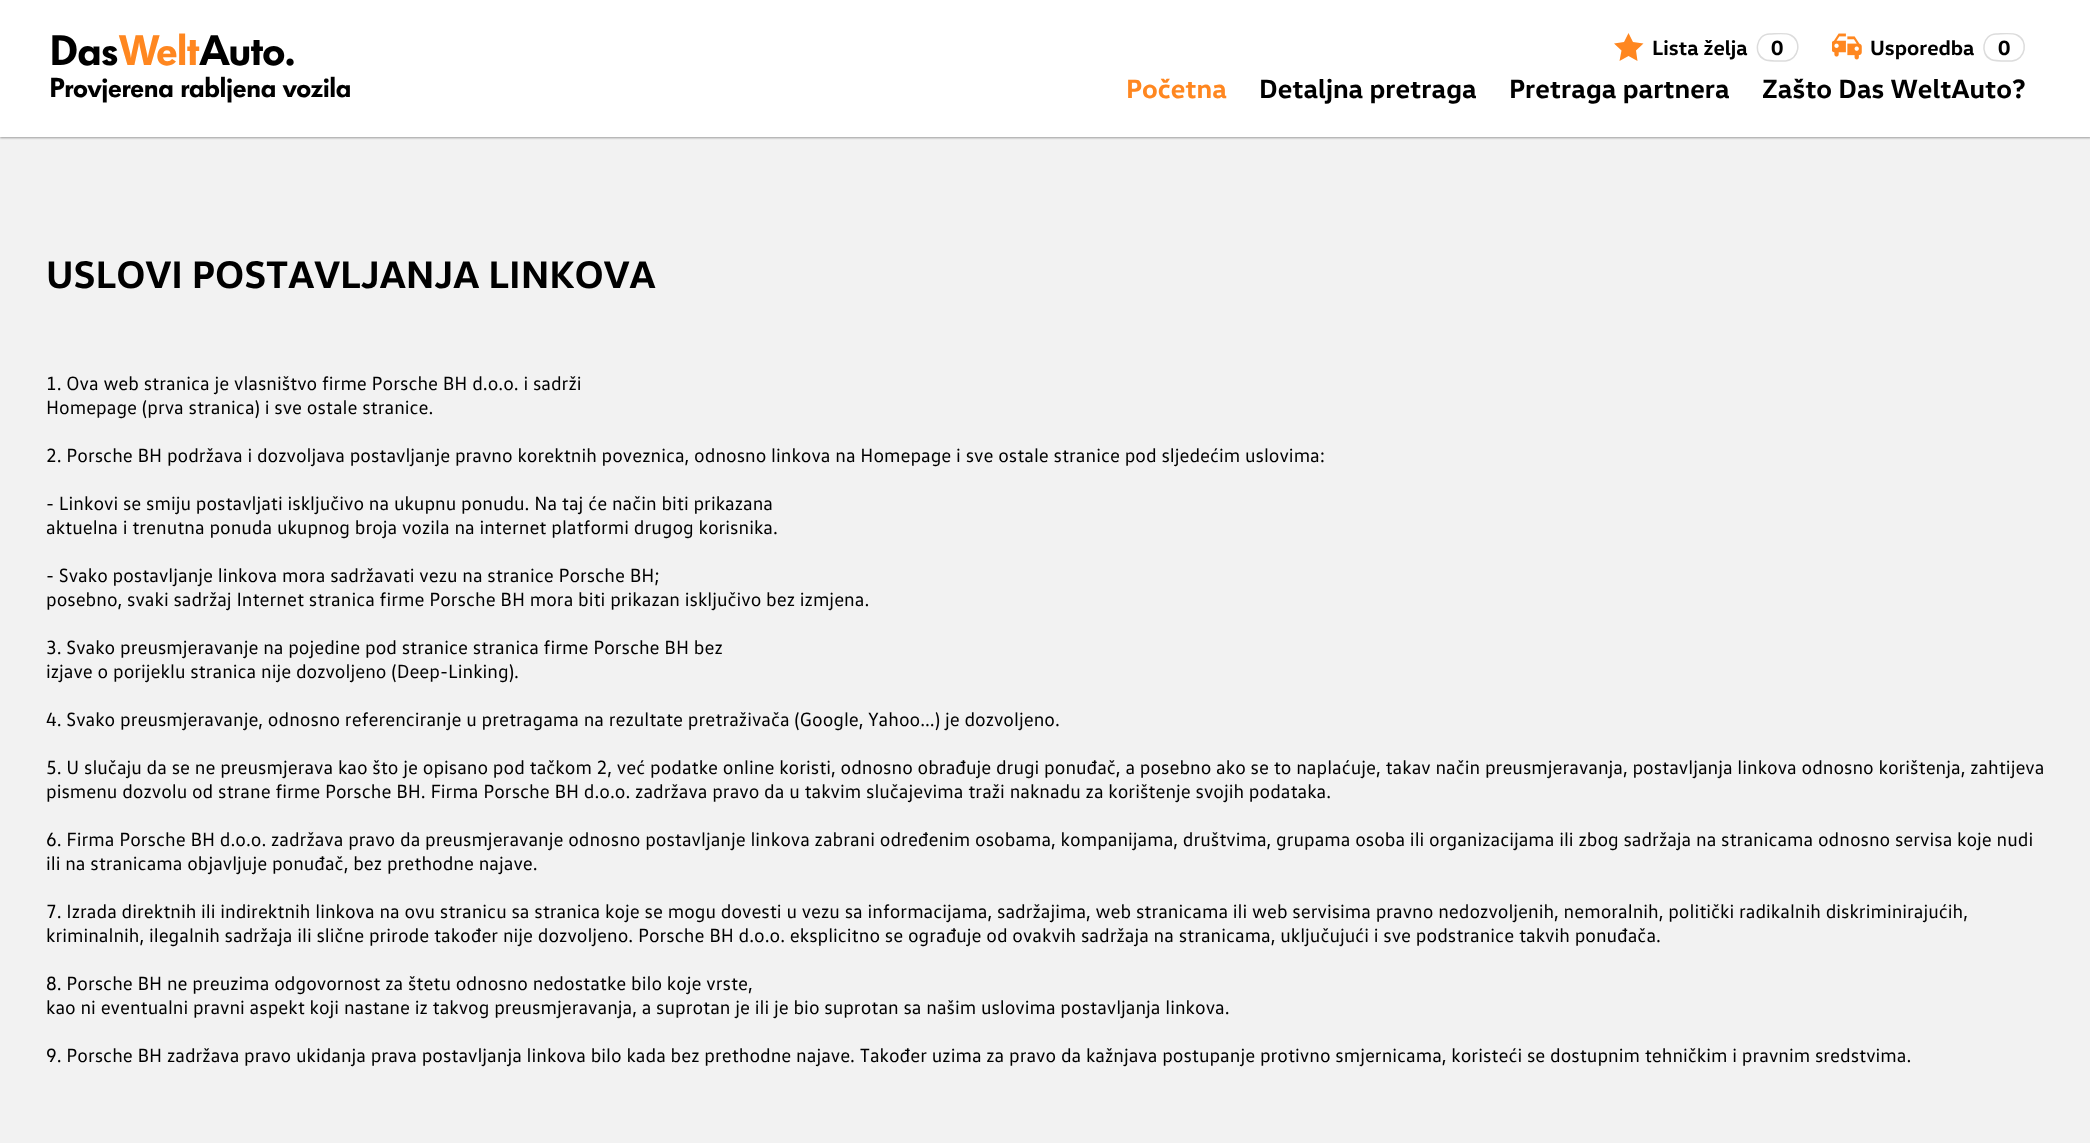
<svg xmlns="http://www.w3.org/2000/svg" xmlns:xlink="http://www.w3.org/1999/xlink" width="2090" height="1143" viewBox="0 0 2090 1143">
<style>
.cls-1{font:900 42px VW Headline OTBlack;letter-spacing:-1px;fill:#000000}
.cls-2{font:900 42px VW Headline OTBlack;letter-spacing:-1px;fill:#ff8720}
.cls-3{font:900 27px VW Headline OTBlack;letter-spacing:-0.55px;fill:#000000}
.cls-4{font:bold 21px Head;fill:#000000}
.cls-5{font:bold 27px Head;fill:#ff8720}
.cls-6{font:bold 27px Head;fill:#000000}
.cls-7{font:bold 39px Head;fill:#000000}
.cls-8{font:19.5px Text;fill:#000000}
</style>
<rect width="100%" height="100%" fill="#f2f2f2"/>
<rect fill="#9b9b9b" filter="blur(1px)" x="0" y="2" width="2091" height="136"/>
<rect fill="#ffffff" x="0" y="0" width="2090" height="137"/>
<path fill="#ff8720" fill-rule="evenodd" d="M1628.5 56L1619.5 61L1621.5 50.5L1614 43.5L1624 42L1628.5 33L1633 42L1643.5 43.5L1636 50.5L1637.5 61Z"/>
<path fill="none" stroke="#dcdcdc" stroke-width="1.5" d="M1769.5 34C1775 34 1785.5 32.5 1790.5 35C1802.5 40.5 1799 60 1785.5 61C1780.5 61 1769 61.5 1764.5 59.5C1753 54.5 1756 34 1769.5 34Z"/>
<image xlink:href="image0.png" x="1832" y="33" width="30" height="27"/>
<path fill="none" stroke="#dcdcdc" stroke-width="1.5" d="M1996 34C2001.5 34 2012 32.5 2017 35C2029 40.5 2025.5 60 2012 61C2007 61 1995.5 61.5 1991 59.5C1979.5 54.5 1982.5 34 1996 34Z"/>
<text class="cls-1" x="49" y="65">Das</text>
<text class="cls-2" x="118" y="65">Welt</text>
<text class="cls-1" x="199" y="65">Auto.</text>
<text class="cls-3" x="49" y="97">Provjerena rabljena vozila</text>
<text class="cls-4" x="1652" y="55">Lista želja</text>
<text class="cls-4" x="1771" y="55">0</text>
<text class="cls-4" x="1870" y="55">Usporedba</text>
<text class="cls-4" x="1998" y="55">0</text>
<text class="cls-5" x="1126" y="98">Početna</text>
<text class="cls-6" x="1259" y="98">Detaljna pretraga</text>
<text class="cls-6" x="1509" y="98">Pretraga partnera</text>
<text class="cls-6" x="1762" y="98">Zašto Das WeltAuto?</text>
<text class="cls-7" x="46" y="288">USLOVI POSTAVLJANJA LINKOVA</text>
<text class="cls-8"><tspan x="46" y="390">1. Ova web stranica je vlasništvo firme Porsche BH d.o.o. i sadrži</tspan><tspan x="46" y="414">Homepage (prva stranica) i sve ostale stranice.</tspan></text>
<text class="cls-8" x="46" y="462">2. Porsche BH podržava i dozvoljava postavljanje pravno korektnih poveznica, odnosno linkova na Homepage i sve ostale stranice pod sljedećim uslovima:</text>
<text class="cls-8"><tspan x="46" y="510">- Linkovi se smiju postavljati isključivo na ukupnu ponudu. Na taj će način biti prikazana</tspan><tspan x="46" y="534">aktuelna i trenutna ponuda ukupnog broja vozila na internet platformi drugog korisnika.</tspan></text>
<text class="cls-8"><tspan x="46" y="582">- Svako postavljanje linkova mora sadržavati vezu na stranice Porsche BH;</tspan><tspan x="46" y="606">posebno, svaki sadržaj Internet stranica firme Porsche BH mora biti prikazan isključivo bez izmjena.</tspan></text>
<text class="cls-8"><tspan x="46" y="654">3. Svako preusmjeravanje na pojedine pod stranice stranica firme Porsche BH bez</tspan><tspan x="46" y="678">izjave o porijeklu stranica nije dozvoljeno (Deep-Linking).</tspan></text>
<text class="cls-8" x="46" y="726">4. Svako preusmjeravanje, odnosno referenciranje u pretragama na rezultate pretraživača (Google, Yahoo...) je dozvoljeno.</text>
<text class="cls-8"><tspan x="46" y="774">5. U slučaju da se ne preusmjerava kao što je opisano pod tačkom 2, već podatke online koristi, odnosno obrađuje drugi ponuđač, a posebno ako se to naplaćuje, takav način preusmjeravanja, postavljanja linkova odnosno korištenja, zahtijeva</tspan><tspan x="46" y="798">pismenu dozvolu od strane firme Porsche BH. Firma Porsche BH d.o.o. zadržava pravo da u takvim slučajevima traži naknadu za korištenje svojih podataka.</tspan></text>
<text class="cls-8"><tspan x="46" y="846">6. Firma Porsche BH d.o.o. zadržava pravo da preusmjeravanje odnosno postavljanje linkova zabrani određenim osobama, kompanijama, društvima, grupama osoba ili organizacijama ili zbog sadržaja na stranicama odnosno servisa koje nudi</tspan><tspan x="46" y="870">ili na stranicama objavljuje ponuđač, bez prethodne najave.</tspan></text>
<text class="cls-8"><tspan x="46" y="918">7. Izrada direktnih ili indirektnih linkova na ovu stranicu sa stranica koje se mogu dovesti u vezu sa informacijama, sadržajima, web stranicama ili web servisima pravno nedozvoljenih, nemoralnih, politički radikalnih diskriminirajućih,</tspan><tspan x="46" y="942">kriminalnih, ilegalnih sadržaja ili slične prirode također nije dozvoljeno. Porsche BH d.o.o. eksplicitno se ograđuje od ovakvih sadržaja na stranicama, uključujući i sve podstranice takvih ponuđača.</tspan></text>
<text class="cls-8"><tspan x="46" y="990">8. Porsche BH ne preuzima odgovornost za štetu odnosno nedostatke bilo koje vrste,</tspan><tspan x="46" y="1014">kao ni eventualni pravni aspekt koji nastane iz takvog preusmjeravanja, a suprotan je ili je bio suprotan sa našim uslovima postavljanja linkova.</tspan></text>
<text class="cls-8" x="46" y="1062">9. Porsche BH zadržava pravo ukidanja prava postavljanja linkova bilo kada bez prethodne najave. Također uzima za pravo da kažnjava postupanje protivno smjernicama, koristeći se dostupnim tehničkim i pravnim sredstvima.</text>
</svg>
